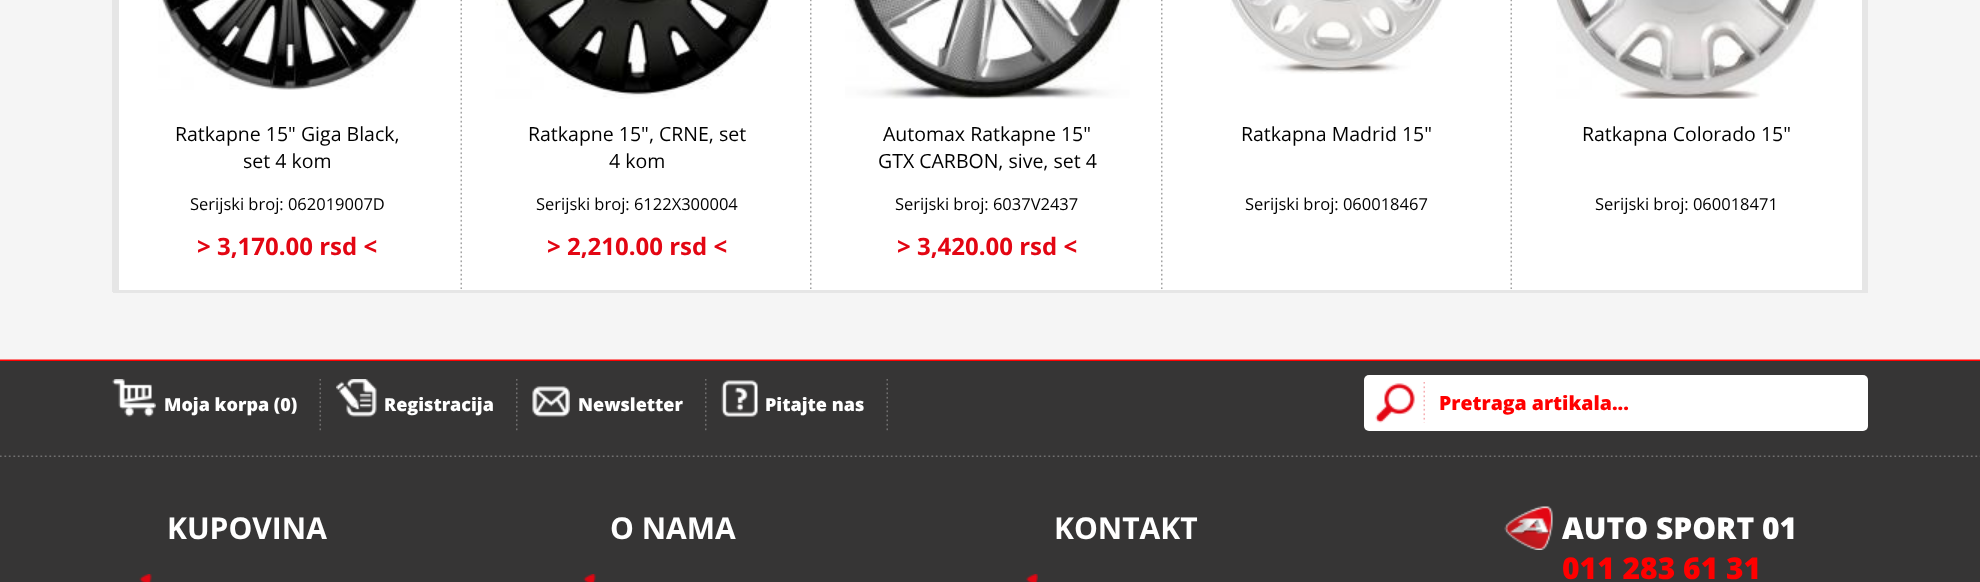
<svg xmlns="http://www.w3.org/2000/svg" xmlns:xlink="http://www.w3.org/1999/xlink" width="1980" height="582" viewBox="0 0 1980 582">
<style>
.cls-1{font:19.5px Open Sans;fill:#000000}
.cls-2{font:16.5px Open Sans;fill:#000000}
.cls-3{font:bold 24px Open Sans;fill:#e30613}
.cls-4{font:800 18px Open Sans;fill:#ffffff}
.cls-5{font:800 19.5px Open Sans;fill:#ff0000}
.cls-6{font:bold 30px Open Sans;fill:#ffffff}
.cls-7{font:800 30px Open Sans;fill:#ffffff}
.cls-8{font:800 30px Open Sans;fill:#ff0000}
</style>
<rect width="100%" height="100%" fill="#f5f5f5"/>
<rect fill="#ffffff" x="119" y="0" width="1743" height="290"/>
<rect fill="#e6e6e6" x="112" y="0" width="7" height="292"/>
<rect fill="#e6e6e6" x="1862" y="0" width="6" height="293"/>
<rect fill="#e6e6e6" x="113" y="290" width="1755" height="3"/>
<image xlink:href="image0.png" x="460" y="0" width="2" height="289"/>
<image xlink:href="image1.png" x="158" y="0" width="263" height="90"/>
<image xlink:href="image2.png" x="810" y="0" width="2" height="289"/>
<image xlink:href="image3.png" x="495" y="0" width="276" height="99"/>
<image xlink:href="image2.png" x="1161" y="0" width="2" height="289"/>
<image xlink:href="image4.png" x="845" y="0" width="285" height="99"/>
<image xlink:href="image0.png" x="1510" y="0" width="2" height="289"/>
<image xlink:href="image5.png" x="1230" y="0" width="212" height="74"/>
<image xlink:href="image6.png" x="1556" y="0" width="262" height="99"/>
<rect fill="#363535" x="0" y="361" width="1980" height="221"/>
<image xlink:href="image7.png" x="0" y="455" width="1980" height="2"/>
<image xlink:href="image8.png" x="0" y="359" width="1980" height="2"/>
<image xlink:href="image9.png" x="319" y="379" width="2" height="52"/>
<image xlink:href="image10.png" x="112" y="379" width="44" height="38"/>
<image xlink:href="image11.png" x="516" y="379" width="2" height="52"/>
<image xlink:href="image12.png" x="336" y="379" width="41" height="38"/>
<image xlink:href="image11.png" x="705" y="379" width="2" height="52"/>
<image xlink:href="image13.png" x="532" y="386" width="38" height="31"/>
<image xlink:href="image9.png" x="886" y="379" width="2" height="52"/>
<image xlink:href="image14.png" x="721" y="380" width="37" height="37"/>
<rect fill="#ffffff" x="1364" y="375" width="504" height="56" rx="5"/>
<image xlink:href="image15.png" x="1375" y="383" width="40" height="40"/>
<image xlink:href="image16.png" x="1423" y="382" width="2" height="41"/>
<image xlink:href="image17.png" x="139" y="574" width="13" height="8"/>
<image xlink:href="image18.png" x="583" y="574" width="13" height="8"/>
<image xlink:href="image19.png" x="1026" y="574" width="12" height="8"/>
<image xlink:href="image20.png" x="1504" y="506" width="49" height="44"/>
<text class="cls-1" x="175" y="141">Ratkapne 15" Giga Black,</text>
<text class="cls-1" x="243" y="168">set 4 kom</text>
<text class="cls-2" x="190" y="210">Serijski broj: 062019007D</text>
<text class="cls-3" x="197" y="255">&gt; 3,170.00 rsd &lt;</text>
<text class="cls-1" x="528" y="141">Ratkapne 15", CRNE, set</text>
<text class="cls-1" x="609" y="168">4 kom</text>
<text class="cls-2" x="536" y="210">Serijski broj: 6122X300004</text>
<text class="cls-3" x="547" y="255">&gt; 2,210.00 rsd &lt;</text>
<text class="cls-1" x="883" y="141">Automax Ratkapne 15"</text>
<text class="cls-1" x="878" y="168">GTX CARBON, sive, set 4</text>
<text class="cls-2" x="895" y="210">Serijski broj: 6037V2437</text>
<text class="cls-3" x="897" y="255">&gt; 3,420.00 rsd &lt;</text>
<text class="cls-1" x="1241" y="141">Ratkapna Madrid 15"</text>
<text class="cls-2" x="1245" y="210">Serijski broj: 060018467</text>
<text class="cls-1" x="1582" y="141">Ratkapna Colorado 15"</text>
<text class="cls-2" x="1595" y="210">Serijski broj: 060018471</text>
<text class="cls-4" x="164" y="411">Moja korpa (0)</text>
<text class="cls-4" x="384" y="411">Registracija</text>
<text class="cls-4" x="578" y="411">Newsletter</text>
<text class="cls-4" x="765" y="411">Pitajte nas</text>
<text class="cls-5" x="1439" y="410">Pretraga artikala...</text>
<text class="cls-6" x="167" y="539">KUPOVINA</text>
<text class="cls-6" x="610" y="539">O NAMA</text>
<text class="cls-6" x="1054" y="539">KONTAKT</text>
<text class="cls-7" x="1562" y="539">AUTO SPORT 01</text>
<text class="cls-8" x="1562" y="579">011 283 61 31</text>
</svg>
